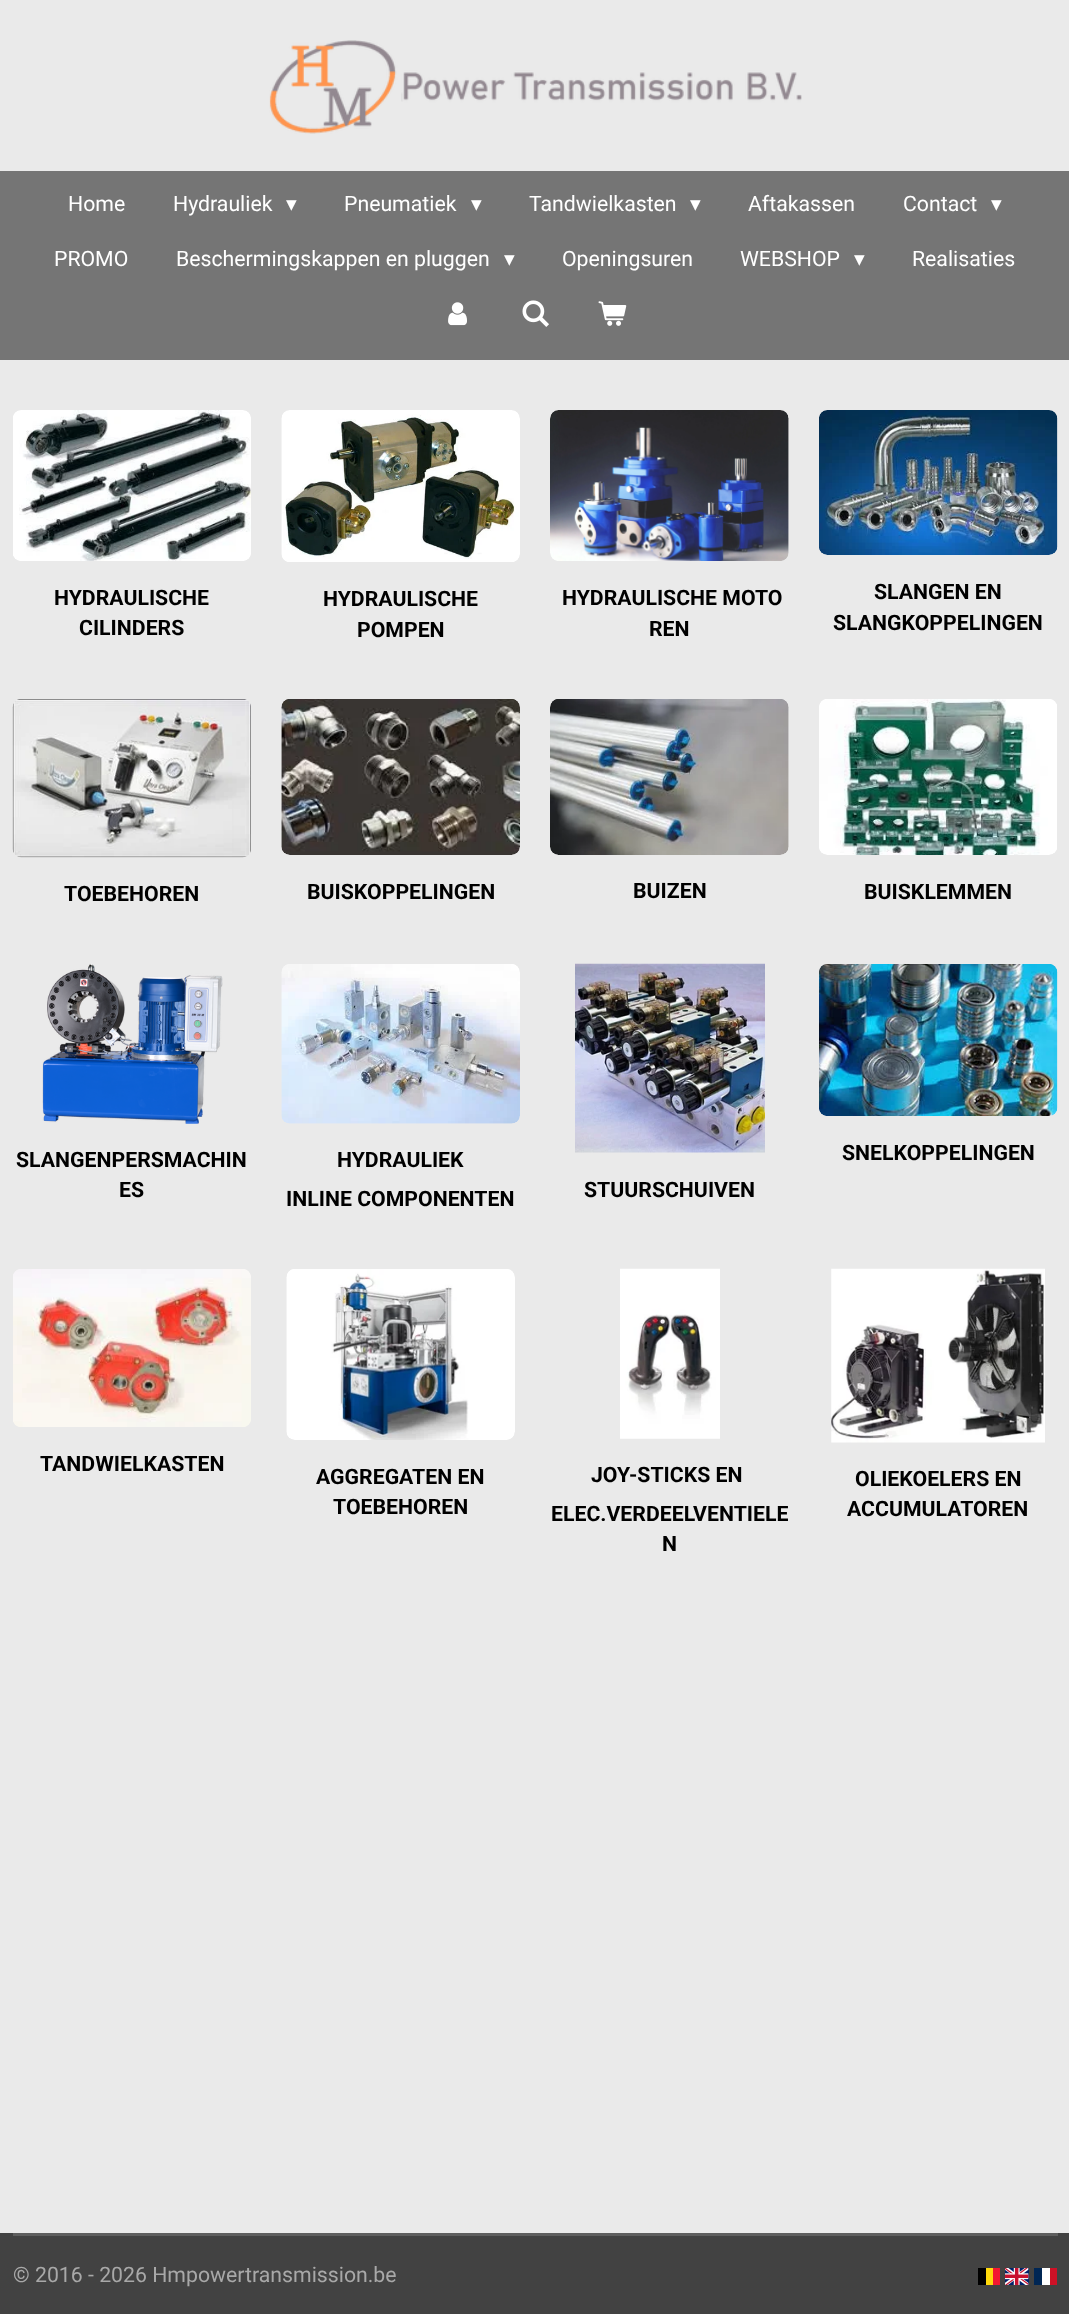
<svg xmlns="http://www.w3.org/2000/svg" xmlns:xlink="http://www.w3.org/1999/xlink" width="1069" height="2314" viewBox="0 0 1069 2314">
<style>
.cls-1{font:21.25px Roboto;fill:#ffffff}
.cls-2{font:21.25px DejaVu Sans;fill:#ffffff}
.cls-3{font:bold 21.25px Roboto;fill:#000000}
.cls-4{font:21.25px Roboto;fill:#a8a8a8}
</style>
<rect width="100%" height="100%" fill="#eaeaea"/>
<image xlink:href="image0.png" x="269" y="40" width="533" height="94"/>
<rect fill="#757575" x="0" y="171" width="1069" height="189"/>
<image xlink:href="image1.png" x="448" y="302" width="19" height="24"/>
<image xlink:href="image2.png" x="522" y="300" width="27" height="27"/>
<image xlink:href="image3.png" x="598" y="301" width="29" height="25"/>
<image xlink:href="image4.png" x="13" y="410" width="238" height="151"/>
<image xlink:href="image5.png" x="281" y="410" width="239" height="152"/>
<image xlink:href="image6.png" x="550" y="410" width="239" height="151"/>
<image xlink:href="image7.png" x="819" y="410" width="239" height="145"/>
<image xlink:href="image8.png" x="12" y="699" width="239" height="159"/>
<image xlink:href="image9.png" x="281" y="699" width="239" height="156"/>
<image xlink:href="image10.png" x="550" y="699" width="239" height="156"/>
<image xlink:href="image11.png" x="819" y="699" width="238" height="156"/>
<image xlink:href="image12.png" x="42" y="963" width="181" height="161"/>
<image xlink:href="image13.png" x="281" y="964" width="239" height="160"/>
<image xlink:href="image14.png" x="575" y="963" width="190" height="190"/>
<image xlink:href="image15.png" x="819" y="964" width="239" height="152"/>
<image xlink:href="image16.png" x="13" y="1269" width="238" height="158"/>
<image xlink:href="image17.png" x="286" y="1269" width="229" height="171"/>
<image xlink:href="image18.png" x="620" y="1268" width="100" height="171"/>
<image xlink:href="image19.png" x="831" y="1268" width="214" height="175"/>
<rect fill="#424242" x="0" y="2233" width="1069" height="81"/>
<rect fill="#5e5e5e" x="13" y="2233" width="1045" height="3"/>
<rect fill="#000000" x="978" y="2268" width="8" height="17"/>
<rect fill="#ffd90c" x="986" y="2268" width="7" height="17"/>
<rect fill="#f31830" x="993" y="2268" width="7" height="17"/>
<image xlink:href="image20.png" x="1005" y="2268" width="24" height="17"/>
<rect fill="#ffffff" x="1042" y="2268" width="8" height="17"/>
<rect fill="#002654" x="1034" y="2268" width="8" height="17"/>
<rect fill="#ce1126" x="1050" y="2268" width="7" height="17"/>
<text class="cls-1" x="68" y="211">Home</text>
<text class="cls-1" x="173" y="211">Hydrauliek</text>
<text class="cls-2" x="286" y="211">▾</text>
<text class="cls-1" x="344" y="211">Pneumatiek</text>
<text class="cls-2" x="471" y="211">▾</text>
<text class="cls-1" x="529" y="211">Tandwielkasten</text>
<text class="cls-2" x="690" y="211">▾</text>
<text class="cls-1" x="748" y="211">Aftakassen</text>
<text class="cls-1" x="903" y="211">Contact</text>
<text class="cls-2" x="991" y="211">▾</text>
<text class="cls-1" x="54" y="266">PROMO</text>
<text class="cls-1" x="176" y="266">Beschermingskappen en pluggen</text>
<text class="cls-2" x="504" y="266">▾</text>
<text class="cls-1" x="562" y="266">Openingsuren</text>
<text class="cls-1" x="740" y="266">WEBSHOP</text>
<text class="cls-2" x="854" y="266">▾</text>
<text class="cls-1" x="912" y="266">Realisaties</text>
<text class="cls-3" x="54" y="605">HYDRAULISCHE</text>
<text class="cls-3" x="79" y="635">CILINDERS</text>
<text class="cls-3" x="323" y="606">HYDRAULISCHE</text>
<text class="cls-3" x="357" y="637">POMPEN</text>
<text class="cls-3" x="562" y="605">HYDRAULISCHE MOTO</text>
<text class="cls-3" x="649" y="636">REN</text>
<text class="cls-3" x="874" y="599">SLANGEN EN</text>
<text class="cls-3" x="833" y="630">SLANGKOPPELINGEN</text>
<text class="cls-3" x="64" y="901">TOEBEHOREN</text>
<text class="cls-3" x="307" y="899">BUISKOPPELINGEN</text>
<text class="cls-3" x="633" y="898">BUIZEN</text>
<text class="cls-3" x="864" y="899">BUISKLEMMEN</text>
<text class="cls-3" x="16" y="1167">SLANGENPERSMACHIN</text>
<text class="cls-3" x="119" y="1197">ES</text>
<text class="cls-3" x="337" y="1167">HYDRAULIEK</text>
<text class="cls-3" x="286" y="1206">INLINE COMPONENTEN</text>
<text class="cls-3" x="584" y="1197">STUURSCHUIVEN</text>
<text class="cls-3" x="842" y="1160">SNELKOPPELINGEN</text>
<text class="cls-3" x="40" y="1471">TANDWIELKASTEN</text>
<text class="cls-3" x="316" y="1484">AGGREGATEN EN</text>
<text class="cls-3" x="333" y="1514">TOEBEHOREN</text>
<text class="cls-3" x="591" y="1482">JOY-STICKS EN</text>
<text class="cls-3" x="551" y="1521">ELEC.VERDEELVENTIELE</text>
<text class="cls-3" x="662" y="1551">N</text>
<text class="cls-3" x="855" y="1486">OLIEKOELERS EN</text>
<text class="cls-3" x="847" y="1516">ACCUMULATOREN</text>
<text class="cls-4" x="13" y="2282">© 2016 - 2026 Hmpowertransmission.be</text>
</svg>
